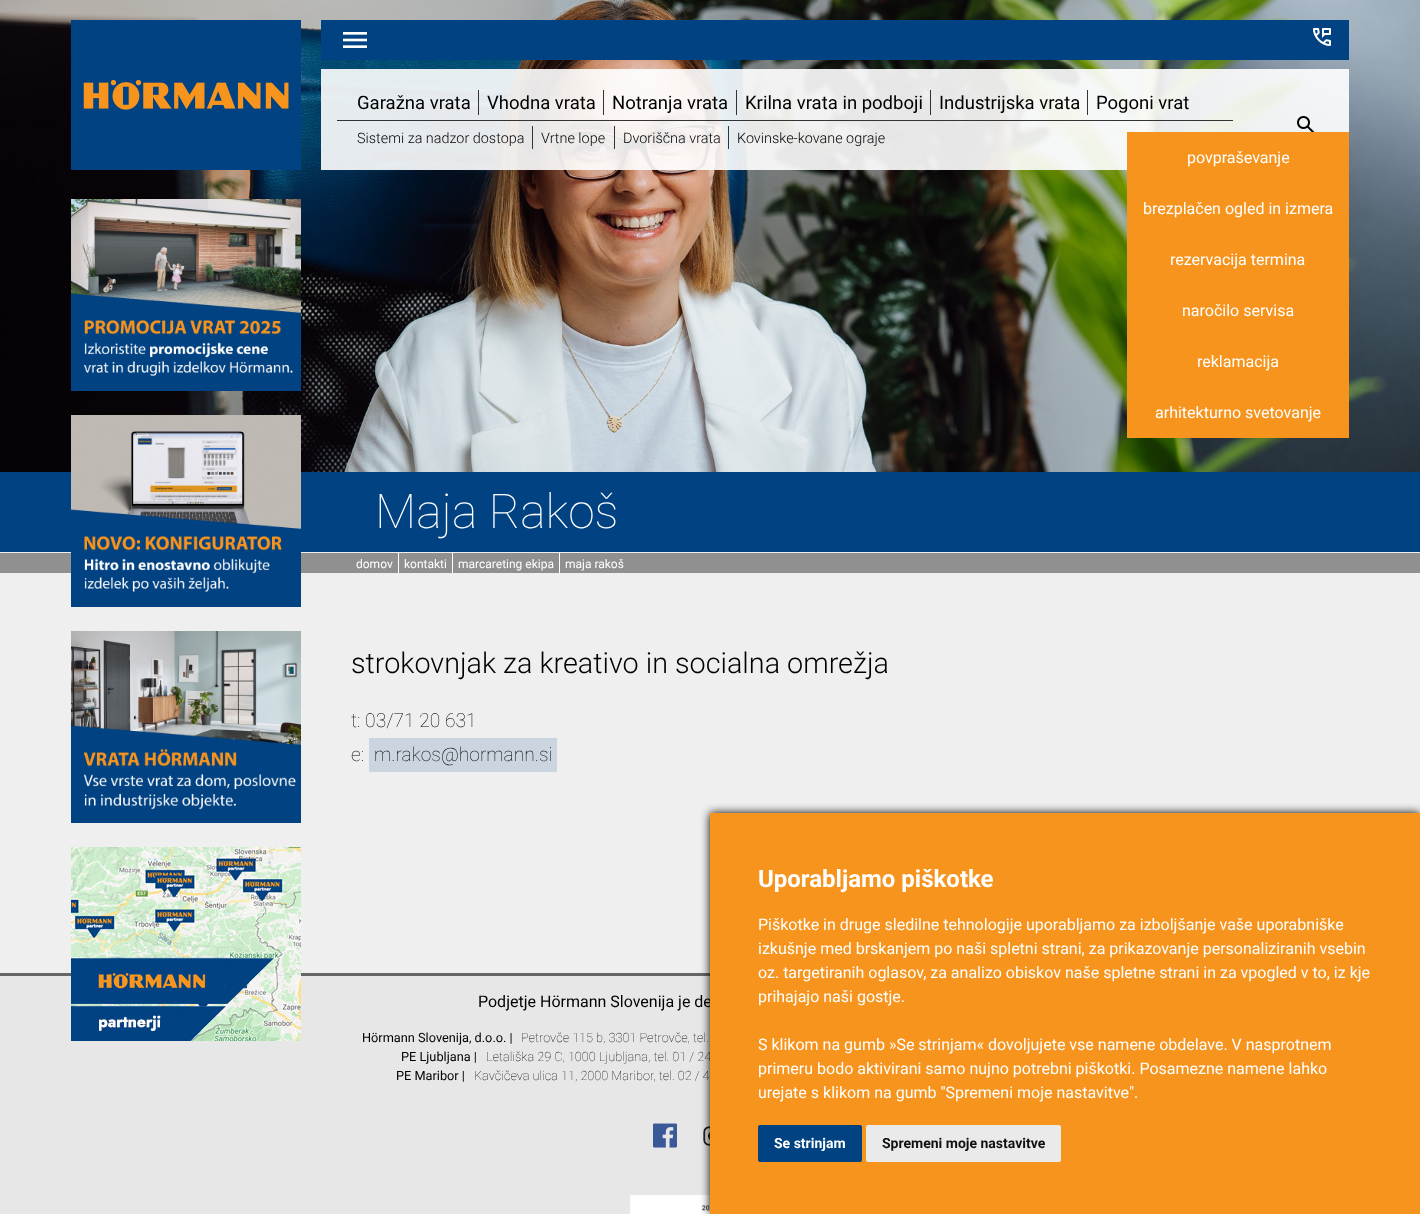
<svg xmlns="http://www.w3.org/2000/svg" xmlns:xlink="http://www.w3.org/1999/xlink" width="1420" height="1214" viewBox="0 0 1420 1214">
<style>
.cls-1{font:18.5px Roboto;fill:#000000}
.cls-2{font:300 14.4px Roboto;fill:#000000}
.cls-3{font:100 48px Roboto;fill:#ffffff}
.cls-4{font:16px Roboto;fill:#ffffff}
.cls-5{font:12px Roboto;fill:#ffffff}
.cls-6{font:300 28.75px Roboto;fill:#000000}
.cls-7{font:100 19.25px Roboto;fill:#000000}
.cls-8{font:16px Roboto;fill:#000000}
.cls-9{font:12.75px Roboto;fill:#000000}
.cls-10{font:100 12.75px Roboto;fill:#000000}
.cls-11{font:bold 24px Roboto;fill:#ffffff}
.cls-12{font:bold 14px Roboto;fill:#ffffff}
.cls-13{font:bold 14px Roboto;fill:#111111}
</style>
<rect width="100%" height="100%" fill="#efefef"/>
<image xlink:href="image2.png" x="0" y="0" width="1420" height="472"/>
<rect fill="#004282" x="321" y="20" width="1028" height="40"/>
<image xlink:href="image0.png" x="343" y="32" width="24" height="16"/>
<image xlink:href="image1.png" x="1313" y="28" width="18" height="18"/>
<rect fill="#004282" x="71" y="20" width="230" height="150"/>
<image xlink:href="image3.png" x="83" y="79" width="206" height="31"/>
<rect fill="#ffffff" fill-opacity="0.9" x="321" y="69" width="1028" height="101"/>
<rect fill="#333333" x="337" y="120" width="896" height="1"/>
<rect fill="#333333" x="478" y="90" width="1" height="25"/>
<rect fill="#333333" x="603" y="90" width="1" height="25"/>
<rect fill="#333333" x="736" y="90" width="1" height="25"/>
<rect fill="#333333" x="930" y="90" width="1" height="25"/>
<rect fill="#333333" x="1087" y="90" width="1" height="25"/>
<image xlink:href="image4.png" x="1297" y="116" width="18" height="16"/>
<rect fill="#333333" x="532" y="126" width="1" height="23"/>
<rect fill="#333333" x="614" y="126" width="1" height="23"/>
<rect fill="#333333" x="728" y="126" width="1" height="23"/>
<rect fill="#004282" x="0" y="472" width="1420" height="80"/>
<rect fill="#f7941d" x="1127" y="132" width="222" height="306"/>
<rect fill="#909090" x="0" y="553" width="1420" height="20"/>
<rect fill="#ffffff" x="398" y="553" width="1" height="20"/>
<rect fill="#ffffff" x="452" y="553" width="1" height="20"/>
<rect fill="#ffffff" x="559" y="553" width="1" height="20"/>
<image xlink:href="image5.png" x="71" y="199" width="230" height="192"/>
<image xlink:href="image6.png" x="71" y="415" width="230" height="192"/>
<image xlink:href="image7.png" x="71" y="631" width="230" height="192"/>
<rect fill="#e7e7e7" x="0" y="976" width="710" height="238"/>
<rect fill="#666666" x="0" y="973" width="710" height="3"/>
<image xlink:href="image8.png" x="71" y="847" width="230" height="194"/>
<rect fill="#cbd5df" x="369" y="738" width="188" height="34"/>
<image xlink:href="image9.png" x="653" y="1123" width="24" height="25"/>
<image xlink:href="image10.png" x="703" y="1126" width="7" height="20"/>
<image xlink:href="image11.png" x="630" y="1195" width="80" height="19"/>
<rect fill="#000000" filter="blur(5px)" x="710" y="813" width="710" height="401"/>
<text class="cls-1" x="357" y="109">Garažna vrata</text>
<text class="cls-1" x="487" y="109">Vhodna vrata</text>
<text class="cls-1" x="612" y="109">Notranja vrata</text>
<text class="cls-1" x="745" y="109">Krilna vrata in podboji</text>
<text class="cls-1" x="939" y="109">Industrijska vrata</text>
<text class="cls-1" x="1096" y="109">Pogoni vrat</text>
<text class="cls-2" x="357" y="143">Sistemi za nadzor dostopa</text>
<text class="cls-2" x="541" y="143">Vrtne lope</text>
<text class="cls-2" x="623" y="143">Dvoriščna vrata</text>
<text class="cls-2" x="737" y="143">Kovinske-kovane ograje</text>
<text class="cls-3" x="375" y="528">Maja Rakoš</text>
<text class="cls-4" x="1187" y="163">povpraševanje</text>
<text class="cls-4" x="1143" y="214">brezplačen ogled in izmera</text>
<text class="cls-4" x="1170" y="265">rezervacija termina</text>
<text class="cls-4" x="1182" y="316">naročilo servisa</text>
<text class="cls-4" x="1197" y="367">reklamacija</text>
<text class="cls-4" x="1155" y="418">arhitekturno svetovanje</text>
<text class="cls-5" x="356" y="568">domov</text>
<text class="cls-5" x="404" y="568">kontakti</text>
<text class="cls-5" x="458" y="568">marcareting ekipa</text>
<text class="cls-5" x="565" y="568">maja rakoš</text>
<text class="cls-6" x="351" y="673">strokovnjak za kreativo in socialna omrežja</text>
<text class="cls-7"><tspan x="351" y="727">t: 03/71 20 631</tspan><tspan x="351" y="761">e:</tspan></text>
<text class="cls-7" x="374" y="761">m.rakos@hormann.si</text>
<text class="cls-8" x="478" y="1007">Podjetje Hörmann Slovenija je de</text>
<text class="cls-9" x="362" y="1042">Hörmann Slovenija, d.o.o. |</text>
<text class="cls-10" x="521" y="1042">Petrovče 115 b, 3301 Petrovče, tel.</text>
<text class="cls-9" x="401" y="1061">PE Ljubljana |</text>
<text class="cls-10" x="486" y="1061">Letališka 29 C, 1000 Ljubljana, tel. 01 / 24</text>
<text class="cls-9" x="396" y="1080">PE Maribor |</text>
<text class="cls-10" x="474" y="1080">Kavčičeva ulica 11, 2000 Maribor, tel. 02 / 4</text>
<rect fill="#f7941d" x="710" y="813" width="710" height="401"/>
<text class="cls-11" x="758" y="887">Uporabljamo piškotke</text>
<text class="cls-4"><tspan x="758" y="930">Piškotke in druge sledilne tehnologije uporabljamo za izboljšanje vaše uporabniške</tspan><tspan x="758" y="954">izkušnje med brskanjem po naši spletni strani, za prikazovanje personaliziranih vsebin</tspan><tspan x="758" y="978">oz. targetiranih oglasov, za analizo obiskov naše spletne strani in za vpogled v to, iz kje</tspan><tspan x="758" y="1002">prihajajo naši gostje.</tspan></text>
<text class="cls-4"><tspan x="758" y="1050">S klikom na gumb »Se strinjam« dovoljujete vse namene obdelave. V nasprotnem</tspan><tspan x="758" y="1074">primeru bodo aktivirani samo nujno potrebni piškotki. Posamezne namene lahko</tspan><tspan x="758" y="1098">urejate s klikom na gumb "Spremeni moje nastavitve".</tspan></text>
<rect fill="#004282" x="758" y="1125" width="104" height="37" rx="2"/>
<text class="cls-12" x="774" y="1148">Se strinjam</text>
<rect fill="#eaeaea" x="866" y="1125" width="195" height="37" rx="2"/>
<text class="cls-13" x="882" y="1148">Spremeni moje nastavitve</text>
</svg>
